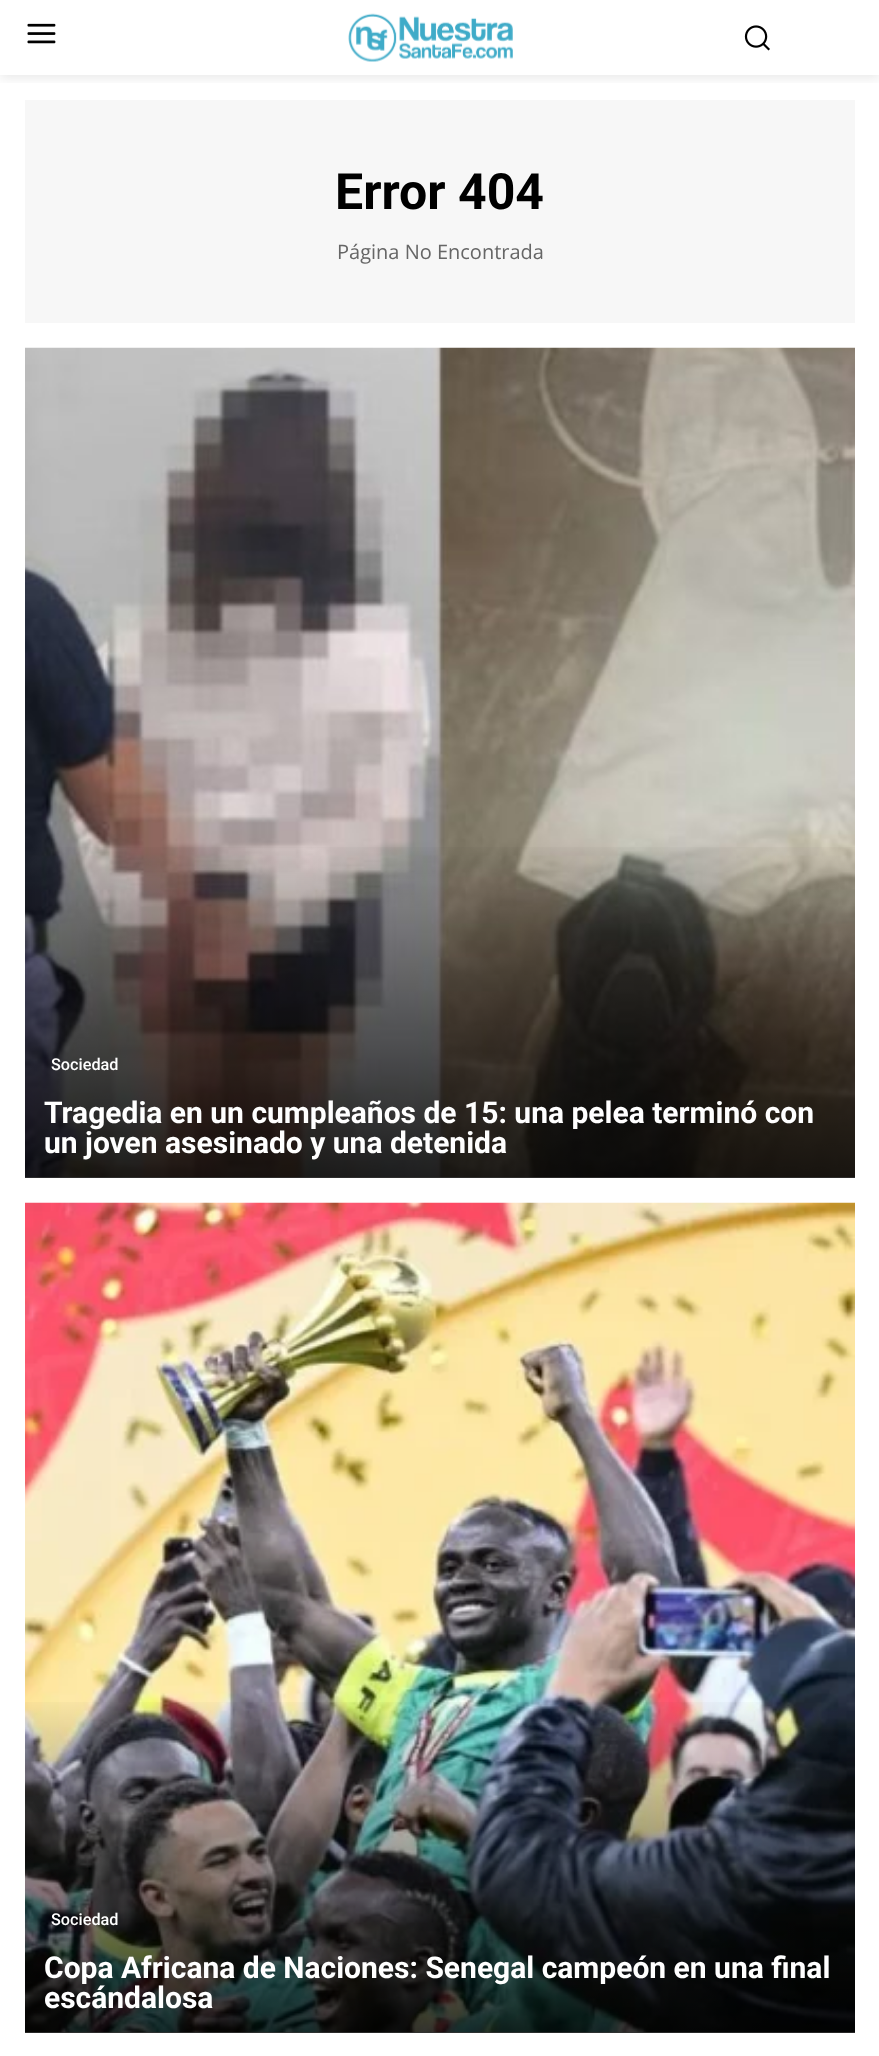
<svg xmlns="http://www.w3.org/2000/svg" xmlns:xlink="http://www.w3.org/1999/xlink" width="879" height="2056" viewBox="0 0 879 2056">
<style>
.cls-1{font:bold 50px Roboto;fill:#000000}
.cls-2{font:20px Open Sans;fill:#666666}
.cls-3{font:500 16.25px Roboto;fill:#ffffff}
.cls-4{font:bold 30px Roboto;fill:#ffffff}
</style>
<defs>
<clipPath id="clip1"><rect x="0" y="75" width="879" height="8"/></clipPath>
<linearGradient id="g1" gradientUnits="userSpaceOnUse" x1="440" y1="1178" x2="440" y2="348"><stop offset="0" stop-color="#000000" stop-opacity="0.8"/><stop offset="0.41" stop-color="#000000" stop-opacity="0"/><stop offset="1" stop-color="#000000" stop-opacity="0"/></linearGradient>
<linearGradient id="g2" gradientUnits="userSpaceOnUse" x1="440" y1="2033" x2="440" y2="1203"><stop offset="0" stop-color="#000000" stop-opacity="0.8"/><stop offset="0.41" stop-color="#000000" stop-opacity="0"/><stop offset="1" stop-color="#000000" stop-opacity="0"/></linearGradient>
</defs>
<rect width="100%" height="100%" fill="#ffffff"/>
<image xlink:href="image0.png" x="27" y="23" width="29" height="21"/>
<image xlink:href="image1.png" x="348" y="13" width="165" height="49"/>
<image xlink:href="image2.png" x="744" y="25" width="26" height="26"/>
<g clip-path="url(#clip1)">
<rect fill="#000000" fill-opacity="0.09" filter="blur(6px)" x="0" y="3" width="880" height="75"/>
</g>
<rect fill="#f7f7f7" x="25" y="100" width="830" height="223"/>
<image xlink:href="image3.png" x="25" y="347" width="830" height="831"/>
<rect fill="url(#g1)" x="25" y="847" width="830" height="331"/>
<image xlink:href="image4.png" x="25" y="1202" width="830" height="831"/>
<rect fill="url(#g2)" x="25" y="1702" width="830" height="331"/>
<text class="cls-1" x="335" y="209">Error 404</text>
<text class="cls-2" x="337" y="259">Página No Encontrada</text>
<text class="cls-3" x="51" y="1070">Sociedad</text>
<text class="cls-4"><tspan x="44" y="1123">Tragedia en un cumpleaños de 15: una pelea terminó con</tspan><tspan x="44" y="1153">un joven asesinado y una detenida</tspan></text>
<text class="cls-3" x="51" y="1925">Sociedad</text>
<text class="cls-4"><tspan x="44" y="1978">Copa Africana de Naciones: Senegal campeón en una final</tspan><tspan x="44" y="2008">escándalosa</tspan></text>
</svg>
